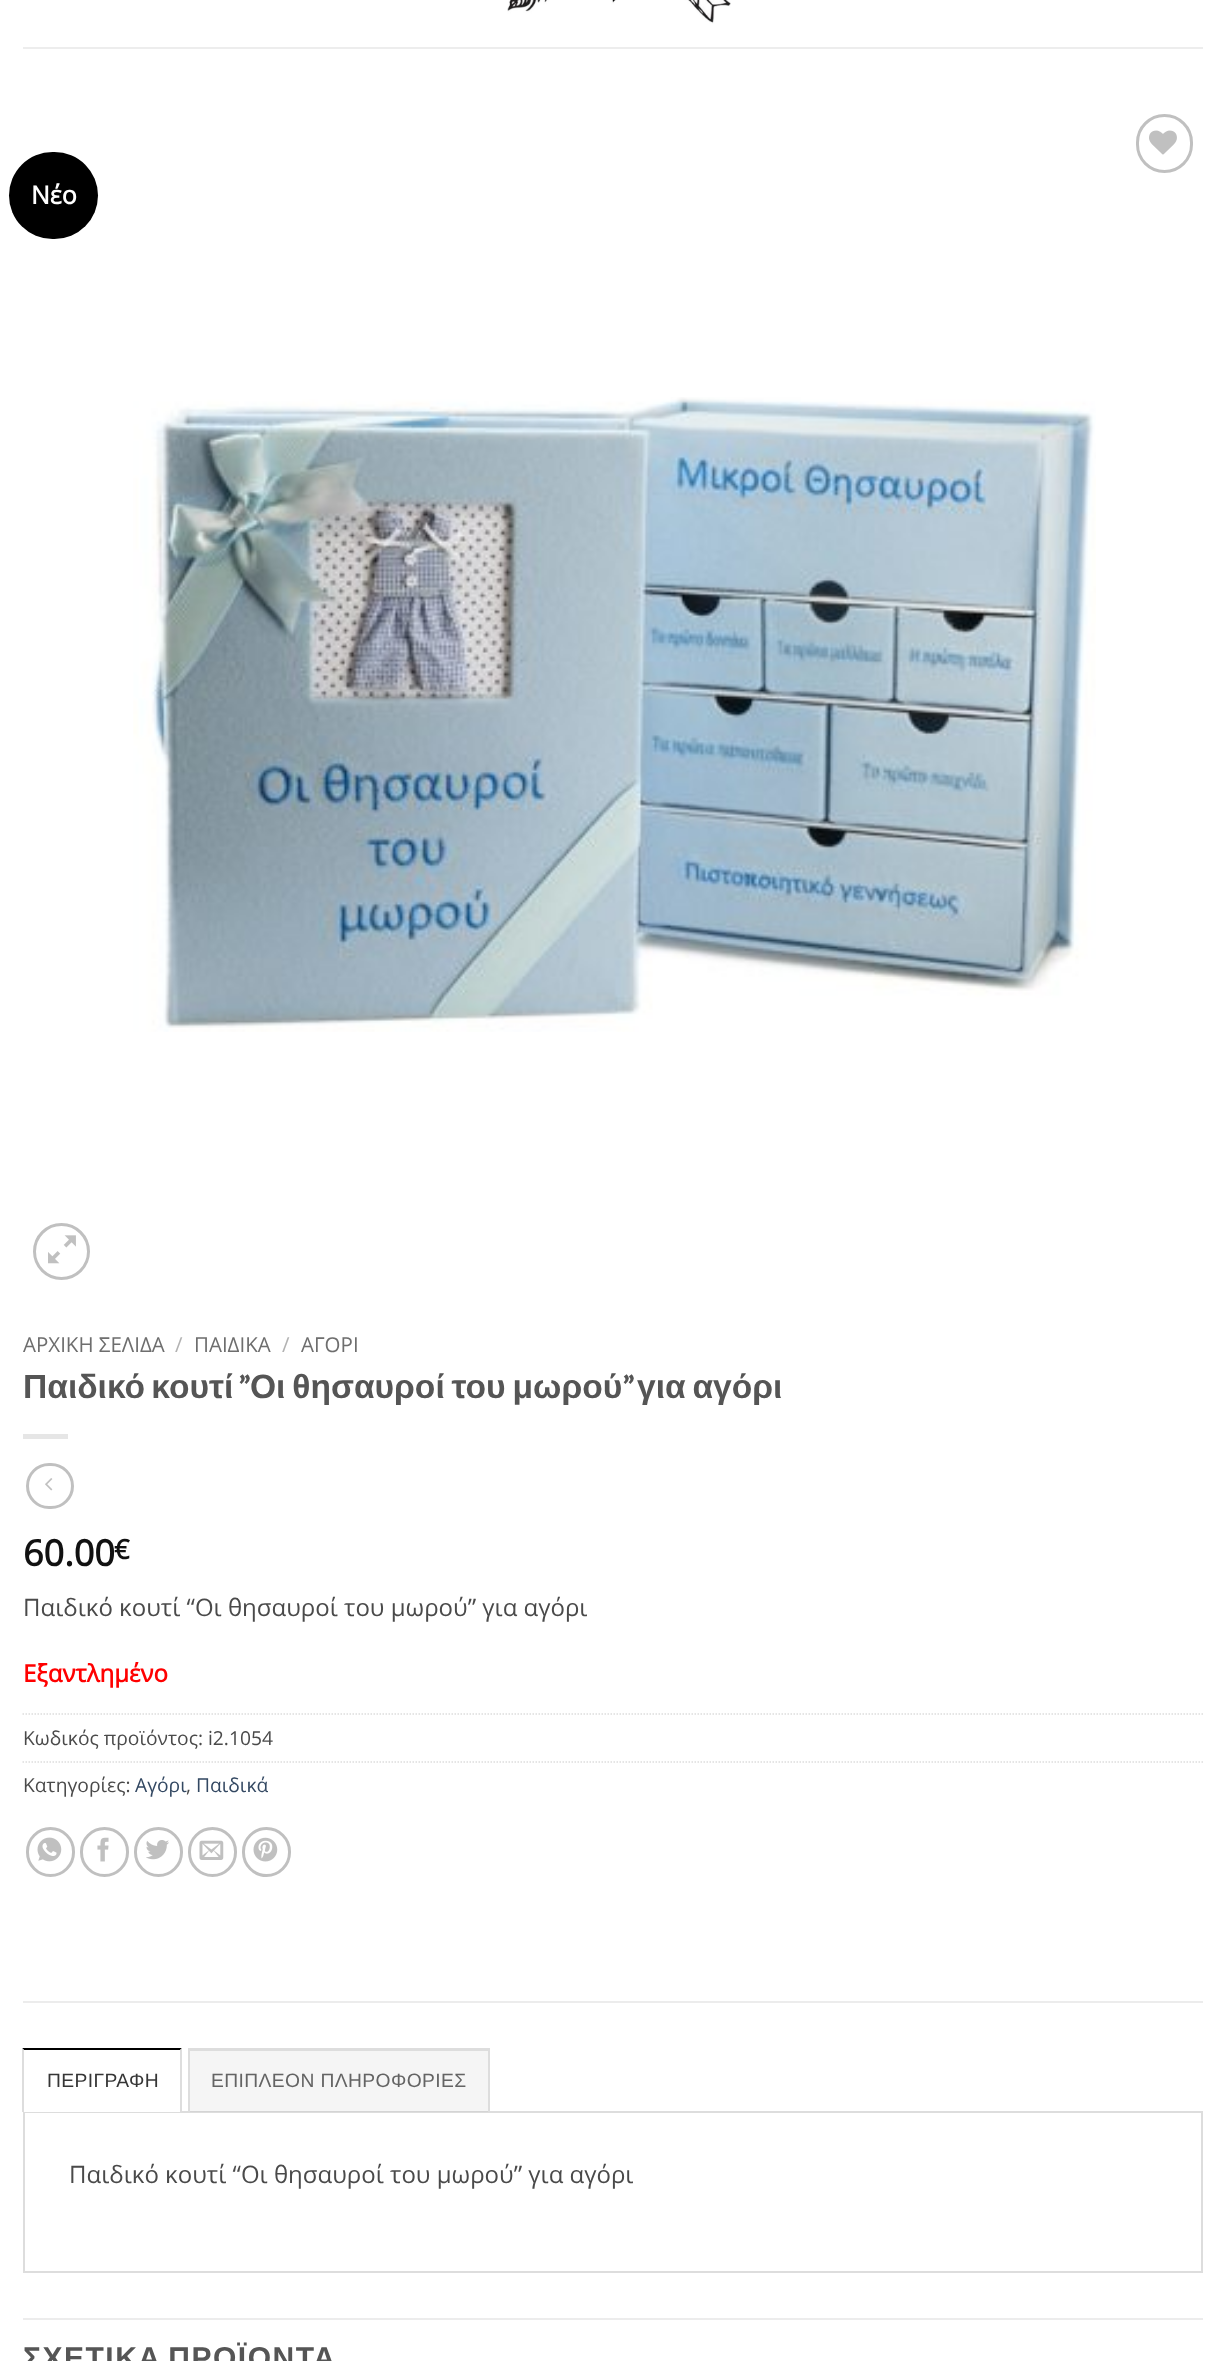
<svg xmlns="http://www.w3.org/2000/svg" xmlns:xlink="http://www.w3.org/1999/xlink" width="1225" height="2361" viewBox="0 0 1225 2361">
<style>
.cls-1{font:bold 25px Open Sans;fill:#ffffff}
.cls-2{font:20.5px Open Sans;fill:#6e6e6e}
.cls-3{font:20.5px Open Sans;fill:#b2b2b2}
.cls-4{font:bold 33.6px Liberation Sans;fill:#555555}
.cls-5{font:bold 33.6px 'Slabo 27px';fill:#555555}
.cls-6{font:bold 36px Open Sans;fill:#111111}
.cls-7{font:bold 27px Open Sans;fill:#111111}
.cls-8{font:24px Open Sans;fill:#4a4a4a}
.cls-9{font:bold 24px Open Sans;fill:#ff0000}
.cls-10{font:19.25px Open Sans;fill:#4a4a4a}
.cls-11{font:19.25px Open Sans;fill:#334862}
.cls-12{font:19.25px Liberation Sans;letter-spacing:0.4px;fill:#363636}
.cls-13{font:19.25px Liberation Sans;letter-spacing:0.4px;fill:#646464}
.cls-14{font:bold 30px Liberation Sans;letter-spacing:1.5px;fill:#555555}
</style>
<rect width="100%" height="100%" fill="#ffffff"/>
<image xlink:href="image0.png" x="507" y="0" width="224" height="24"/>
<rect fill="#ededed" x="23" y="47" width="1180" height="2"/>
<rect fill="none" stroke="#c0c0c0" stroke-width="3" x="1137.5" y="115.5" width="54" height="56" rx="27"/>
<image xlink:href="image1.png" x="1149" y="130" width="28" height="25"/>
<rect fill="#000000" x="9" y="152" width="89" height="87" rx="43.5"/>
<image xlink:href="image2.png" x="133" y="397" width="963" height="635"/>
<circle fill="none" stroke="#c0c0c0" stroke-width="3" cx="61.5" cy="1251.5" r="27"/>
<image xlink:href="image3.png" x="48" y="1235" width="28" height="29"/>
<rect fill="#e6e6e6" x="23" y="1434" width="45" height="5"/>
<rect fill="none" stroke="#c0c0c0" stroke-width="3" x="27.5" y="1464.5" width="45" height="43" rx="21.5"/>
<image xlink:href="image4.png" x="45" y="1478" width="8" height="13"/>
<path fill="none" stroke="#dddddd" stroke-width="1.5" stroke-dasharray="1.5 1.5" d="M22.5 1714H1203"/>
<path fill="none" stroke="#dddddd" stroke-width="1.5" stroke-dasharray="1.5 1.5" d="M22.5 1762H1203"/>
<rect fill="none" stroke="#c0c0c0" stroke-width="3" x="27.5" y="1828.5" width="46" height="47" rx="23"/>
<image xlink:href="image5.png" x="37" y="1837" width="25" height="25"/>
<rect fill="none" stroke="#c0c0c0" stroke-width="3" x="81.5" y="1828.5" width="46" height="47" rx="23"/>
<image xlink:href="image6.png" x="97" y="1837" width="12" height="25"/>
<rect fill="none" stroke="#c0c0c0" stroke-width="3" x="135.5" y="1828.5" width="46" height="47" rx="23"/>
<image xlink:href="image7.png" x="146" y="1840" width="23" height="20"/>
<rect fill="none" stroke="#c0c0c0" stroke-width="3" x="189.5" y="1828.5" width="46" height="47" rx="23"/>
<image xlink:href="image8.png" x="199" y="1840" width="25" height="20"/>
<rect fill="none" stroke="#c0c0c0" stroke-width="3" x="243.5" y="1828.5" width="46" height="47" rx="23"/>
<image xlink:href="image9.png" x="253" y="1837" width="25" height="25"/>
<rect fill="#ececec" x="23" y="2001" width="1180" height="2"/>
<rect fill="none" stroke="#dddddd" stroke-width="2" x="24" y="2112" width="1178" height="160"/>
<rect fill="#ffffff" x="23" y="2111" width="159" height="1"/>
<path fill="#000000" d="M22 2048H182L180 2050H24Z"/>
<path fill="#dddddd" d="M182 2048V2112H180V2050Z"/>
<path fill="#dddddd" d="M22 2112V2048L24 2050V2112Z"/>
<rect fill="#000000" fill-opacity="0.04" x="190" y="2051" width="298" height="61"/>
<rect fill="#dddddd" x="188" y="2048" width="301" height="3"/>
<rect fill="#dddddd" x="488" y="2048" width="2" height="64"/>
<rect fill="#dddddd" x="188" y="2048" width="2" height="64"/>
<rect fill="#ececec" x="23" y="2318" width="1180" height="2"/>
<text class="cls-1" x="31" y="204">Νέο</text>
<text class="cls-2" x="23" y="1352">ΑΡΧΙΚΗ ΣΕΛΙΔΑ</text>
<text class="cls-3" x="175" y="1352">/</text>
<text class="cls-2" x="194" y="1352">ΠΑΙΔΙΚΑ</text>
<text class="cls-3" x="282" y="1352">/</text>
<text class="cls-2" x="301" y="1352">ΑΓΟΡΙ</text>
<text class="cls-4" x="23" y="1398" word-spacing="-3">Παιδικό κουτί</text>
<text class="cls-5" x="239" y="1398">”</text>
<text class="cls-4" x="250" y="1398" word-spacing="-2.5">Οι θησαυροί του μωρού</text>
<text class="cls-5" x="623" y="1398">”</text>
<text class="cls-4" x="637" y="1398" word-spacing="-2.5">για αγόρι</text>
<text class="cls-6" x="23" y="1566">60.00</text>
<text class="cls-7" x="114" y="1559">€</text>
<text class="cls-8" x="23" y="1616">Παιδικό κουτί “Οι θησαυροί του μωρού” για αγόρι</text>
<text class="cls-9" x="23" y="1682">Εξαντλημένο</text>
<text class="cls-10" x="23" y="1745">Κωδικός προϊόντος: i2.1054</text>
<text class="cls-10" x="23" y="1792">Κατηγορίες:</text>
<text class="cls-11" x="135" y="1792">Αγόρι</text>
<text class="cls-10" x="186" y="1792">,</text>
<text class="cls-11" x="196" y="1792">Παιδικά</text>
<text class="cls-12" x="47" y="2087">ΠΕΡΙΓΡΑΦΗ</text>
<text class="cls-13" x="211" y="2087">ΕΠΙΠΛΕΟΝ ΠΛΗΡΟΦΟΡΙΕΣ</text>
<text class="cls-8" x="69" y="2183">Παιδικό κουτί “Οι θησαυροί του μωρού” για αγόρι</text>
<text class="cls-14" x="23" y="2368" word-spacing="-3">ΣΧΕΤΙΚΑ ΠΡΟΪΟΝΤΑ</text>
</svg>
